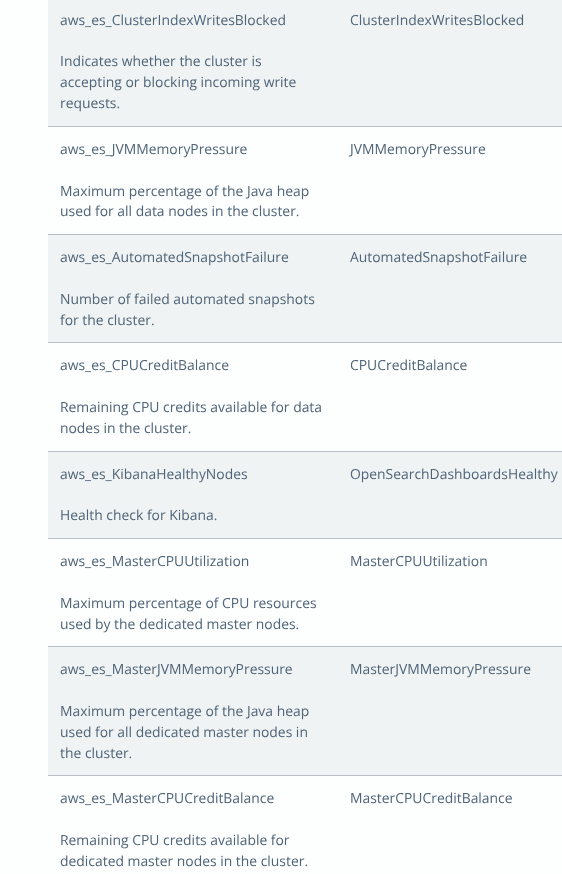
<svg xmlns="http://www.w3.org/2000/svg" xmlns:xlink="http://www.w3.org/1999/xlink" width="562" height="874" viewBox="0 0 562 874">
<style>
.cls-1{font:13.9px Open Sans;fill:#4f6477}
</style>
<rect width="100%" height="100%" fill="#fdfefe"/>
<rect fill="#f0f3f4" x="48" y="0" width="514" height="126"/>
<rect fill="#b9c0c5" x="48" y="126" width="514" height="1"/>
<rect fill="#f0f3f4" x="48" y="235" width="514" height="107"/>
<rect fill="#b9c0c5" x="48" y="234" width="514" height="1"/>
<rect fill="#b9c0c5" x="48" y="342" width="514" height="1"/>
<rect fill="#f0f3f4" x="48" y="452" width="514" height="86"/>
<rect fill="#b9c0c5" x="48" y="451" width="514" height="1"/>
<rect fill="#b9c0c5" x="48" y="538" width="514" height="1"/>
<rect fill="#f0f3f4" x="48" y="647" width="514" height="128"/>
<rect fill="#b9c0c5" x="48" y="646" width="514" height="1"/>
<rect fill="#b9c0c5" x="48" y="775" width="514" height="1"/>
<text class="cls-1" x="60" y="25">aws_es_ClusterIndexWritesBlocked</text>
<text class="cls-1"><tspan x="60" y="66">Indicates whether the cluster is</tspan><tspan x="60" y="87">accepting or blocking incoming write</tspan><tspan x="60" y="108">requests.</tspan></text>
<text class="cls-1" x="350" y="25">ClusterIndexWritesBlocked</text>
<text class="cls-1" x="60" y="154">aws_es_JVMMemoryPressure</text>
<text class="cls-1"><tspan x="60" y="196">Maximum percentage of the Java heap</tspan><tspan x="60" y="216">used for all data nodes in the cluster.</tspan></text>
<text class="cls-1" x="350" y="154">JVMMemoryPressure</text>
<text class="cls-1" x="60" y="262">aws_es_AutomatedSnapshotFailure</text>
<text class="cls-1"><tspan x="60" y="304">Number of failed automated snapshots</tspan><tspan x="60" y="325">for the cluster.</tspan></text>
<text class="cls-1" x="350" y="262">AutomatedSnapshotFailure</text>
<text class="cls-1" x="60" y="370">aws_es_CPUCreditBalance</text>
<text class="cls-1"><tspan x="60" y="412">Remaining CPU credits available for data</tspan><tspan x="60" y="433">nodes in the cluster.</tspan></text>
<text class="cls-1" x="350" y="370">CPUCreditBalance</text>
<text class="cls-1" x="60" y="479">aws_es_KibanaHealthyNodes</text>
<text class="cls-1" x="60" y="520">Health check for Kibana.</text>
<text class="cls-1" x="350" y="479">OpenSearchDashboardsHealthy</text>
<text class="cls-1" x="60" y="566">aws_es_MasterCPUUtilization</text>
<text class="cls-1"><tspan x="60" y="608">Maximum percentage of CPU resources</tspan><tspan x="60" y="629">used by the dedicated master nodes.</tspan></text>
<text class="cls-1" x="350" y="566">MasterCPUUtilization</text>
<text class="cls-1" x="60" y="674">aws_es_MasterJVMMemoryPressure</text>
<text class="cls-1"><tspan x="60" y="716">Maximum percentage of the Java heap</tspan><tspan x="60" y="737">used for all dedicated master nodes in</tspan><tspan x="60" y="758">the cluster.</tspan></text>
<text class="cls-1" x="350" y="674">MasterJVMMemoryPressure</text>
<text class="cls-1" x="60" y="803">aws_es_MasterCPUCreditBalance</text>
<text class="cls-1"><tspan x="60" y="845">Remaining CPU credits available for</tspan><tspan x="60" y="866">dedicated master nodes in the cluster.</tspan></text>
<text class="cls-1" x="350" y="803">MasterCPUCreditBalance</text>
</svg>
